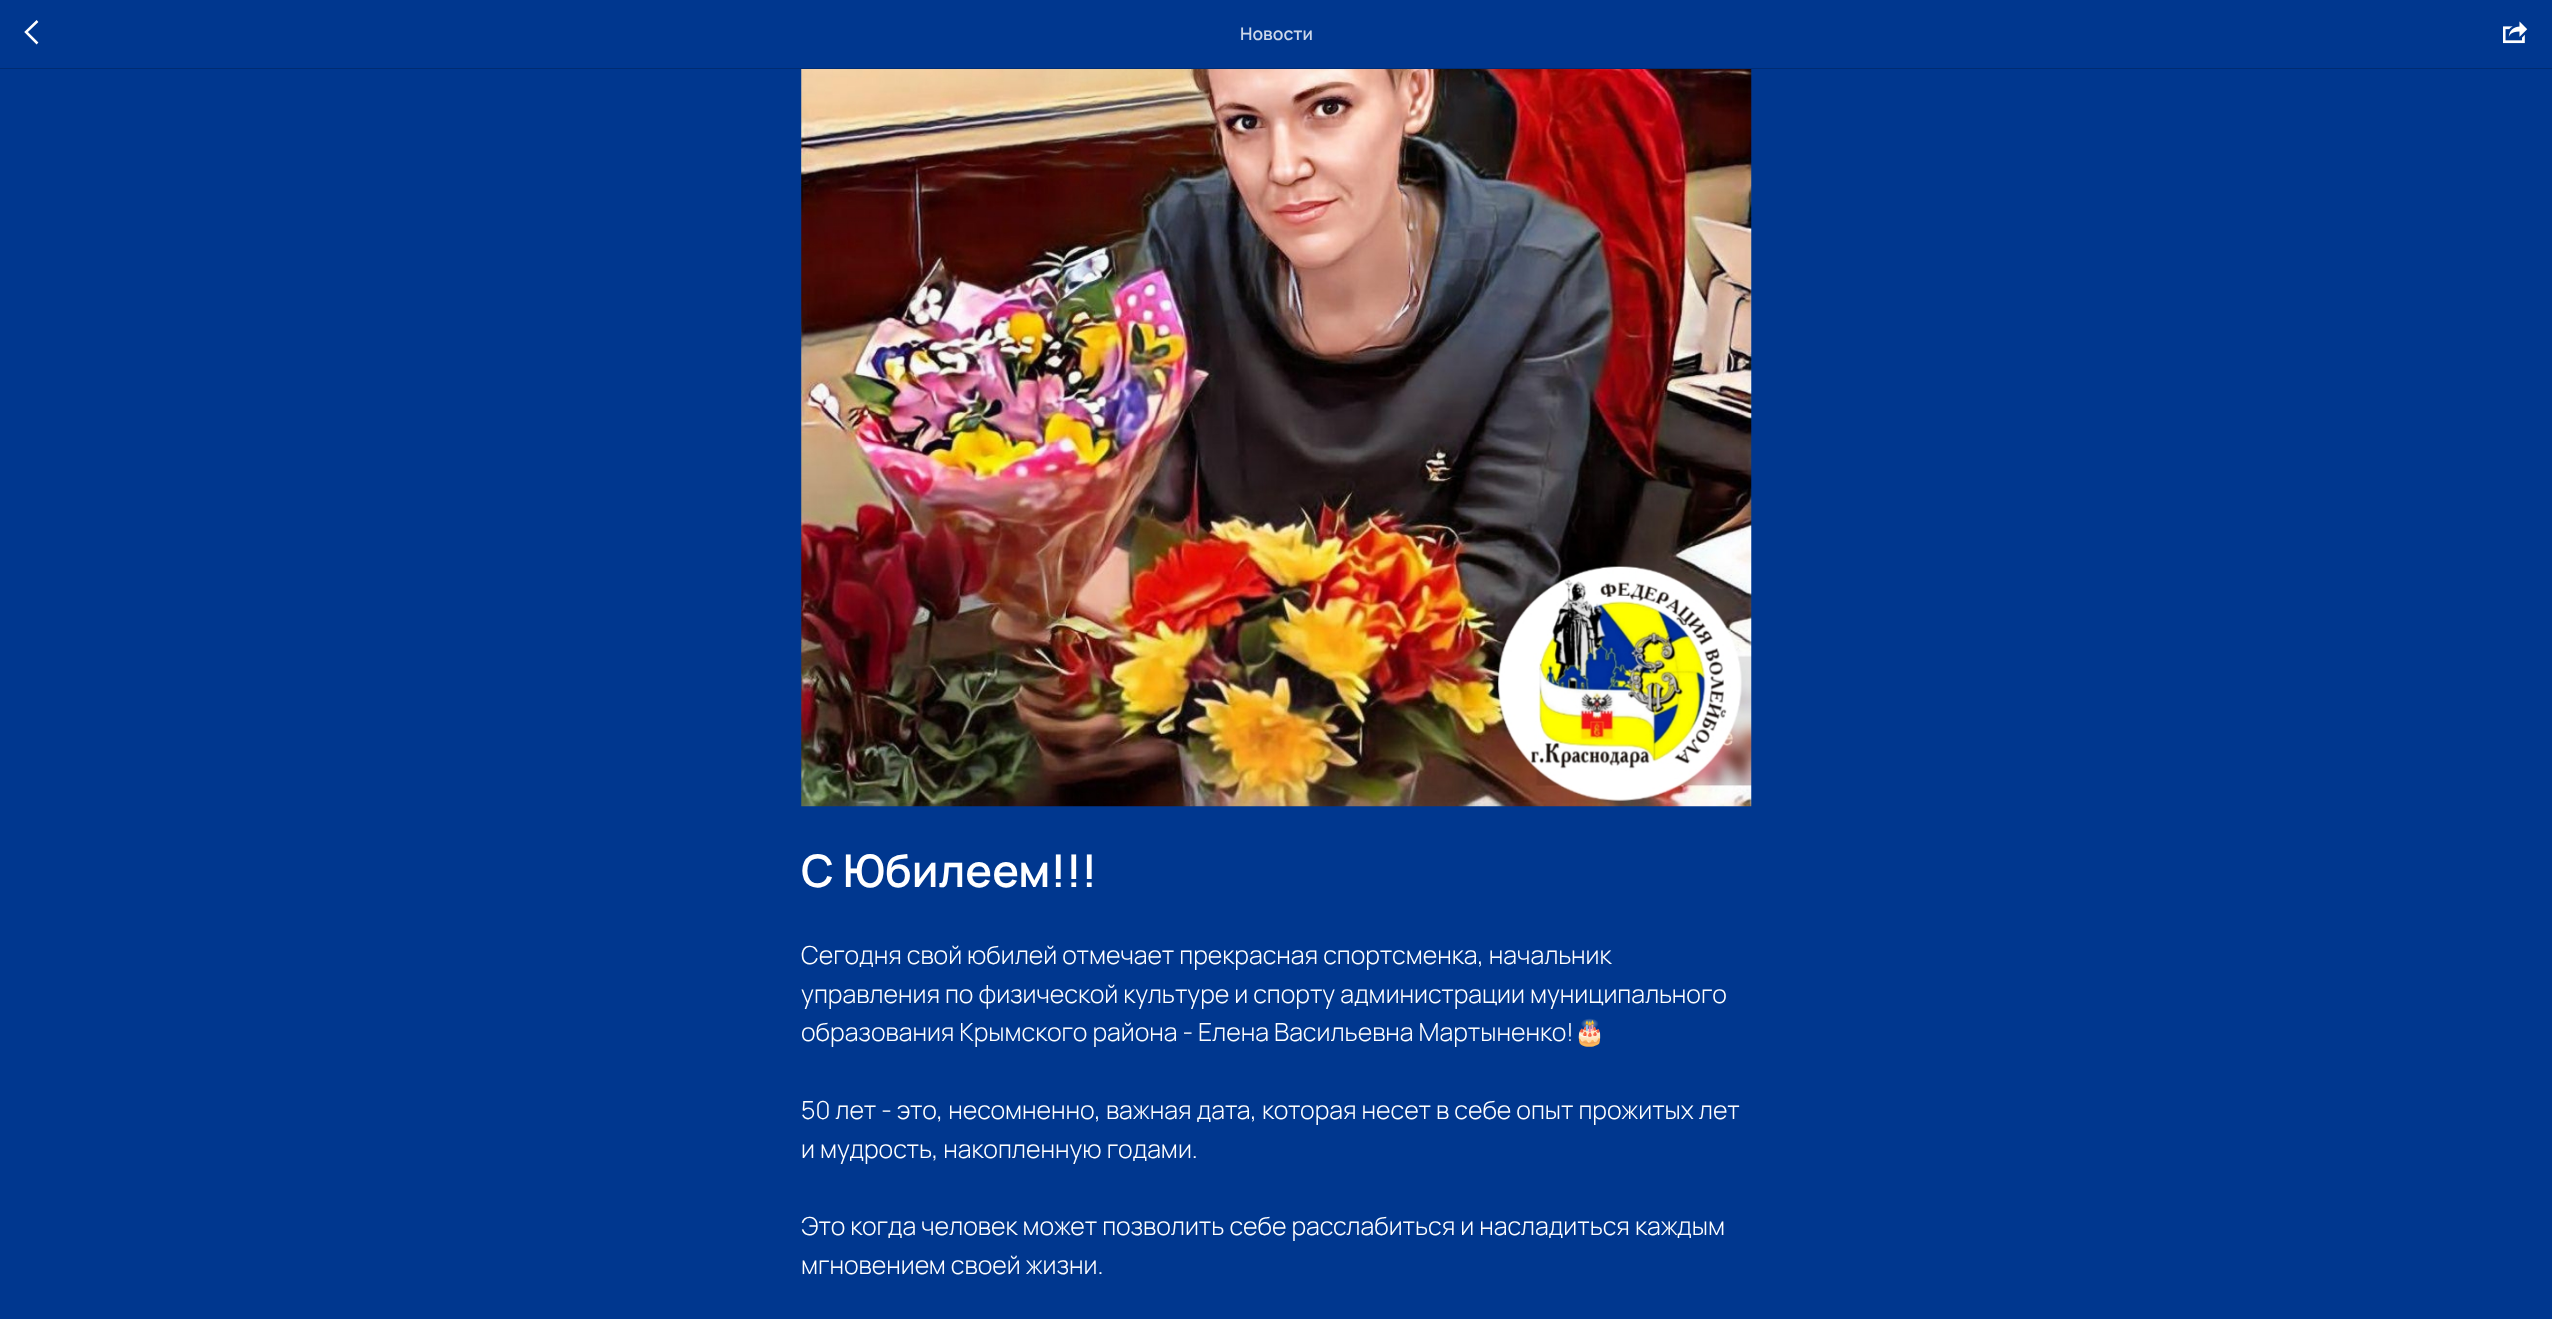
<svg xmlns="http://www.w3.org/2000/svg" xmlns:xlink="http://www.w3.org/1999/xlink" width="2552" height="1319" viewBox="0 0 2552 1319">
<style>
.cls-1{font:600 17.5px Manrope;fill:#ccd7e9}
.cls-2{font:600 45px Manrope;fill:#ffffff}
.cls-3{font:300 25px Manrope;fill:#ffffff}
.cls-4{font:25px Noto Color Emoji;fill:#ffffff}
</style>
<rect width="100%" height="100%" fill="#00378f"/>
<rect fill="#002c72" x="0" y="68" width="2552" height="1"/>
<path fill="none" stroke="#ffffff" stroke-width="2.5" d="M37.5 43.5L26 32L37.5 21"/>
<image xlink:href="image0.png" x="2503" y="21" width="25" height="23"/>
<image xlink:href="image1.png" x="801" y="69" width="951" height="738"/>
<text class="cls-1" x="1240" y="40">Новости</text>
<text class="cls-2" x="801" y="887">С Юбилеем!!!</text>
<text class="cls-3"><tspan x="801" y="964">Сегодня свой юбилей отмечает прекрасная спортсменка, начальник</tspan><tspan x="801" y="1003">управления по физической культуре и спорту администрации муниципального</tspan><tspan x="801" y="1041">образования Крымского района - Елена Васильевна Мартыненко!</tspan></text>
<text class="cls-4" x="1574" y="1041">🎂</text>
<text class="cls-3"><tspan x="801" y="1119">50 лет - это, несомненно, важная дата, которая несет в себе опыт прожитых лет</tspan><tspan x="801" y="1158">и мудрость, накопленную годами.</tspan></text>
<text class="cls-3"><tspan x="801" y="1235">Это когда человек может позволить себе расслабиться и насладиться каждым</tspan><tspan x="801" y="1274">мгновением своей жизни.</tspan></text>
</svg>
